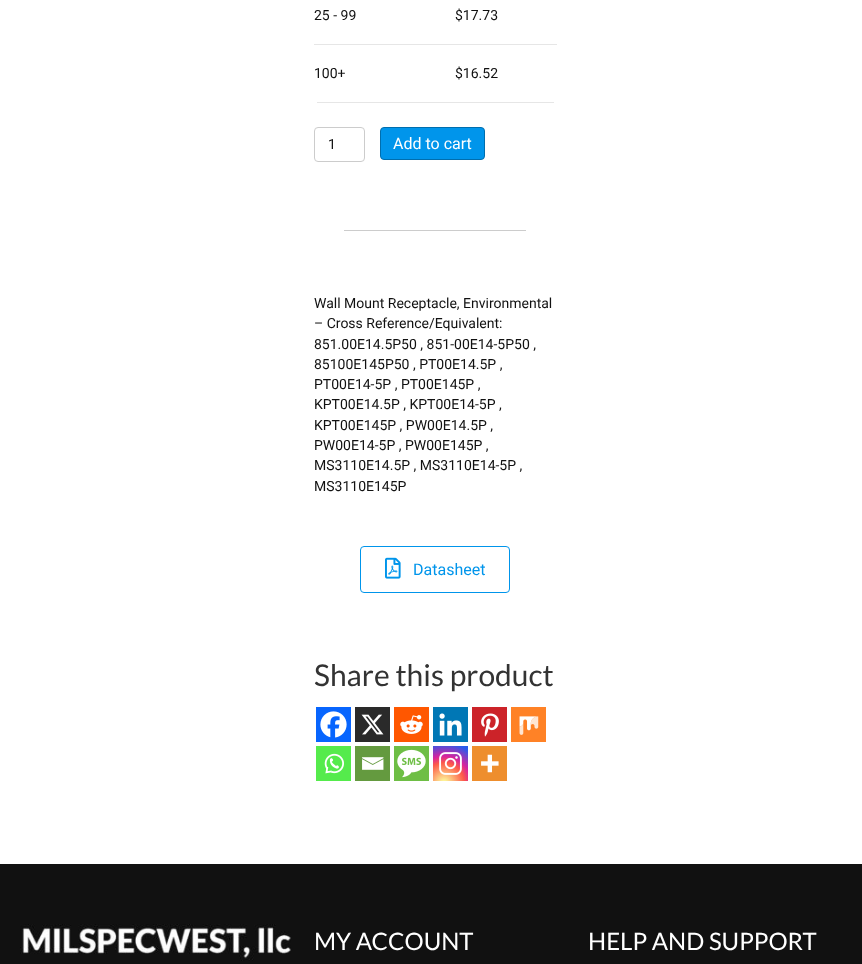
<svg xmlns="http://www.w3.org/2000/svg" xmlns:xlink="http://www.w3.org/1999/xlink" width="862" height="964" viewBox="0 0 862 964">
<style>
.cls-1{font:14px Roboto;fill:#111111}
.cls-2{font:16px Roboto;fill:#ffffff}
.cls-3{font:16px Roboto;fill:#0095eb}
.cls-4{font:30px Lato;fill:#333333}
.cls-5{font:24px Lato;fill:#ffffff}
</style>
<defs>
<radialGradient id="g1" gradientUnits="userSpaceOnUse" cx="444" cy="783" r="45"><stop offset="0" stop-color="#fdf497"/><stop offset="0.05" stop-color="#fdf497"/><stop offset="0.45" stop-color="#fd5949"/><stop offset="0.6" stop-color="#d6249f"/><stop offset="0.9" stop-color="#285aeb"/></radialGradient>
</defs>
<rect width="100%" height="100%" fill="#ffffff"/>
<rect fill="#e6e6e6" x="317" y="102" width="237" height="1"/>
<rect fill="#e6e6e6" x="314" y="44" width="243" height="1"/>
<rect fill="none" stroke="#cccccc" x="314.5" y="127.5" width="50" height="34" rx="3.5"/>
<rect fill="#0095eb" stroke="#006eae" x="380.5" y="127.5" width="104" height="32" rx="3.5"/>
<rect fill="#cccccc" x="344" y="230" width="182" height="1"/>
<rect fill="none" stroke="#0095eb" x="360.5" y="546.5" width="149" height="46" rx="3.5"/>
<image xlink:href="image0.png" x="385" y="557" width="16" height="22"/>
<rect fill="#0765fe" x="316" y="707" width="35" height="35"/>
<image xlink:href="image1.png" x="320" y="711" width="27" height="27"/>
<rect fill="#2a2a2a" x="355" y="707" width="35" height="35"/>
<image xlink:href="image2.png" x="361" y="714" width="23" height="21"/>
<rect fill="#ff5700" x="394" y="707" width="35" height="35"/>
<image xlink:href="image3.png" x="400" y="715" width="23" height="19"/>
<rect fill="#0077b5" x="433" y="707" width="35" height="35"/>
<image xlink:href="image4.png" x="439" y="713" width="23" height="23"/>
<rect fill="#cc2329" x="472" y="707" width="35" height="35"/>
<image xlink:href="image5.png" x="481" y="713" width="18" height="24"/>
<rect fill="#ff8226" x="511" y="707" width="35" height="35"/>
<image xlink:href="image6.png" x="519" y="716" width="20" height="19"/>
<rect fill="#55eb4c" x="316" y="746" width="35" height="35"/>
<image xlink:href="image7.png" x="324" y="753" width="20" height="21"/>
<rect fill="#649a3f" x="355" y="746" width="35" height="35"/>
<image xlink:href="image8.png" x="362" y="757" width="22" height="13"/>
<rect fill="#6ebe45" x="394" y="746" width="35" height="35"/>
<image xlink:href="image9.png" x="397" y="749" width="29" height="29"/>
<rect fill="url(#g1)" x="433" y="746" width="35" height="35"/>
<image xlink:href="image10.png" x="439" y="752" width="23" height="23"/>
<rect fill="#ee8e2d" x="472" y="746" width="35" height="35"/>
<image xlink:href="image11.png" x="481" y="754" width="18" height="19"/>
<rect fill="#111111" x="0" y="864" width="862" height="100"/>
<image xlink:href="image12.png" x="20" y="924" width="271" height="37"/>
<text class="cls-1" x="314" y="20">25 - 99</text>
<text class="cls-1" x="455" y="20">$17.73</text>
<text class="cls-1" x="314" y="78">100+</text>
<text class="cls-1" x="455" y="78">$16.52</text>
<text class="cls-1" x="328" y="149">1</text>
<text class="cls-2" x="393" y="149">Add to cart</text>
<text class="cls-1"><tspan x="314" y="308">Wall Mount Receptacle, Environmental</tspan><tspan x="314" y="328">– Cross Reference/Equivalent:</tspan><tspan x="314" y="349">851.00E14.5P50 , 851-00E14-5P50 ,</tspan><tspan x="314" y="369">85100E145P50 , PT00E14.5P ,</tspan><tspan x="314" y="389">PT00E14-5P , PT00E145P ,</tspan><tspan x="314" y="409">KPT00E14.5P , KPT00E14-5P ,</tspan><tspan x="314" y="430">KPT00E145P , PW00E14.5P ,</tspan><tspan x="314" y="450">PW00E14-5P , PW00E145P ,</tspan><tspan x="314" y="470">MS3110E14.5P , MS3110E14-5P ,</tspan><tspan x="314" y="491">MS3110E145P</tspan></text>
<text class="cls-3" x="413" y="575">Datasheet</text>
<text class="cls-4" x="314" y="686">Share this product</text>
<text class="cls-5" x="314" y="950">MY ACCOUNT</text>
<text class="cls-5" x="588" y="950">HELP AND SUPPORT</text>
</svg>
